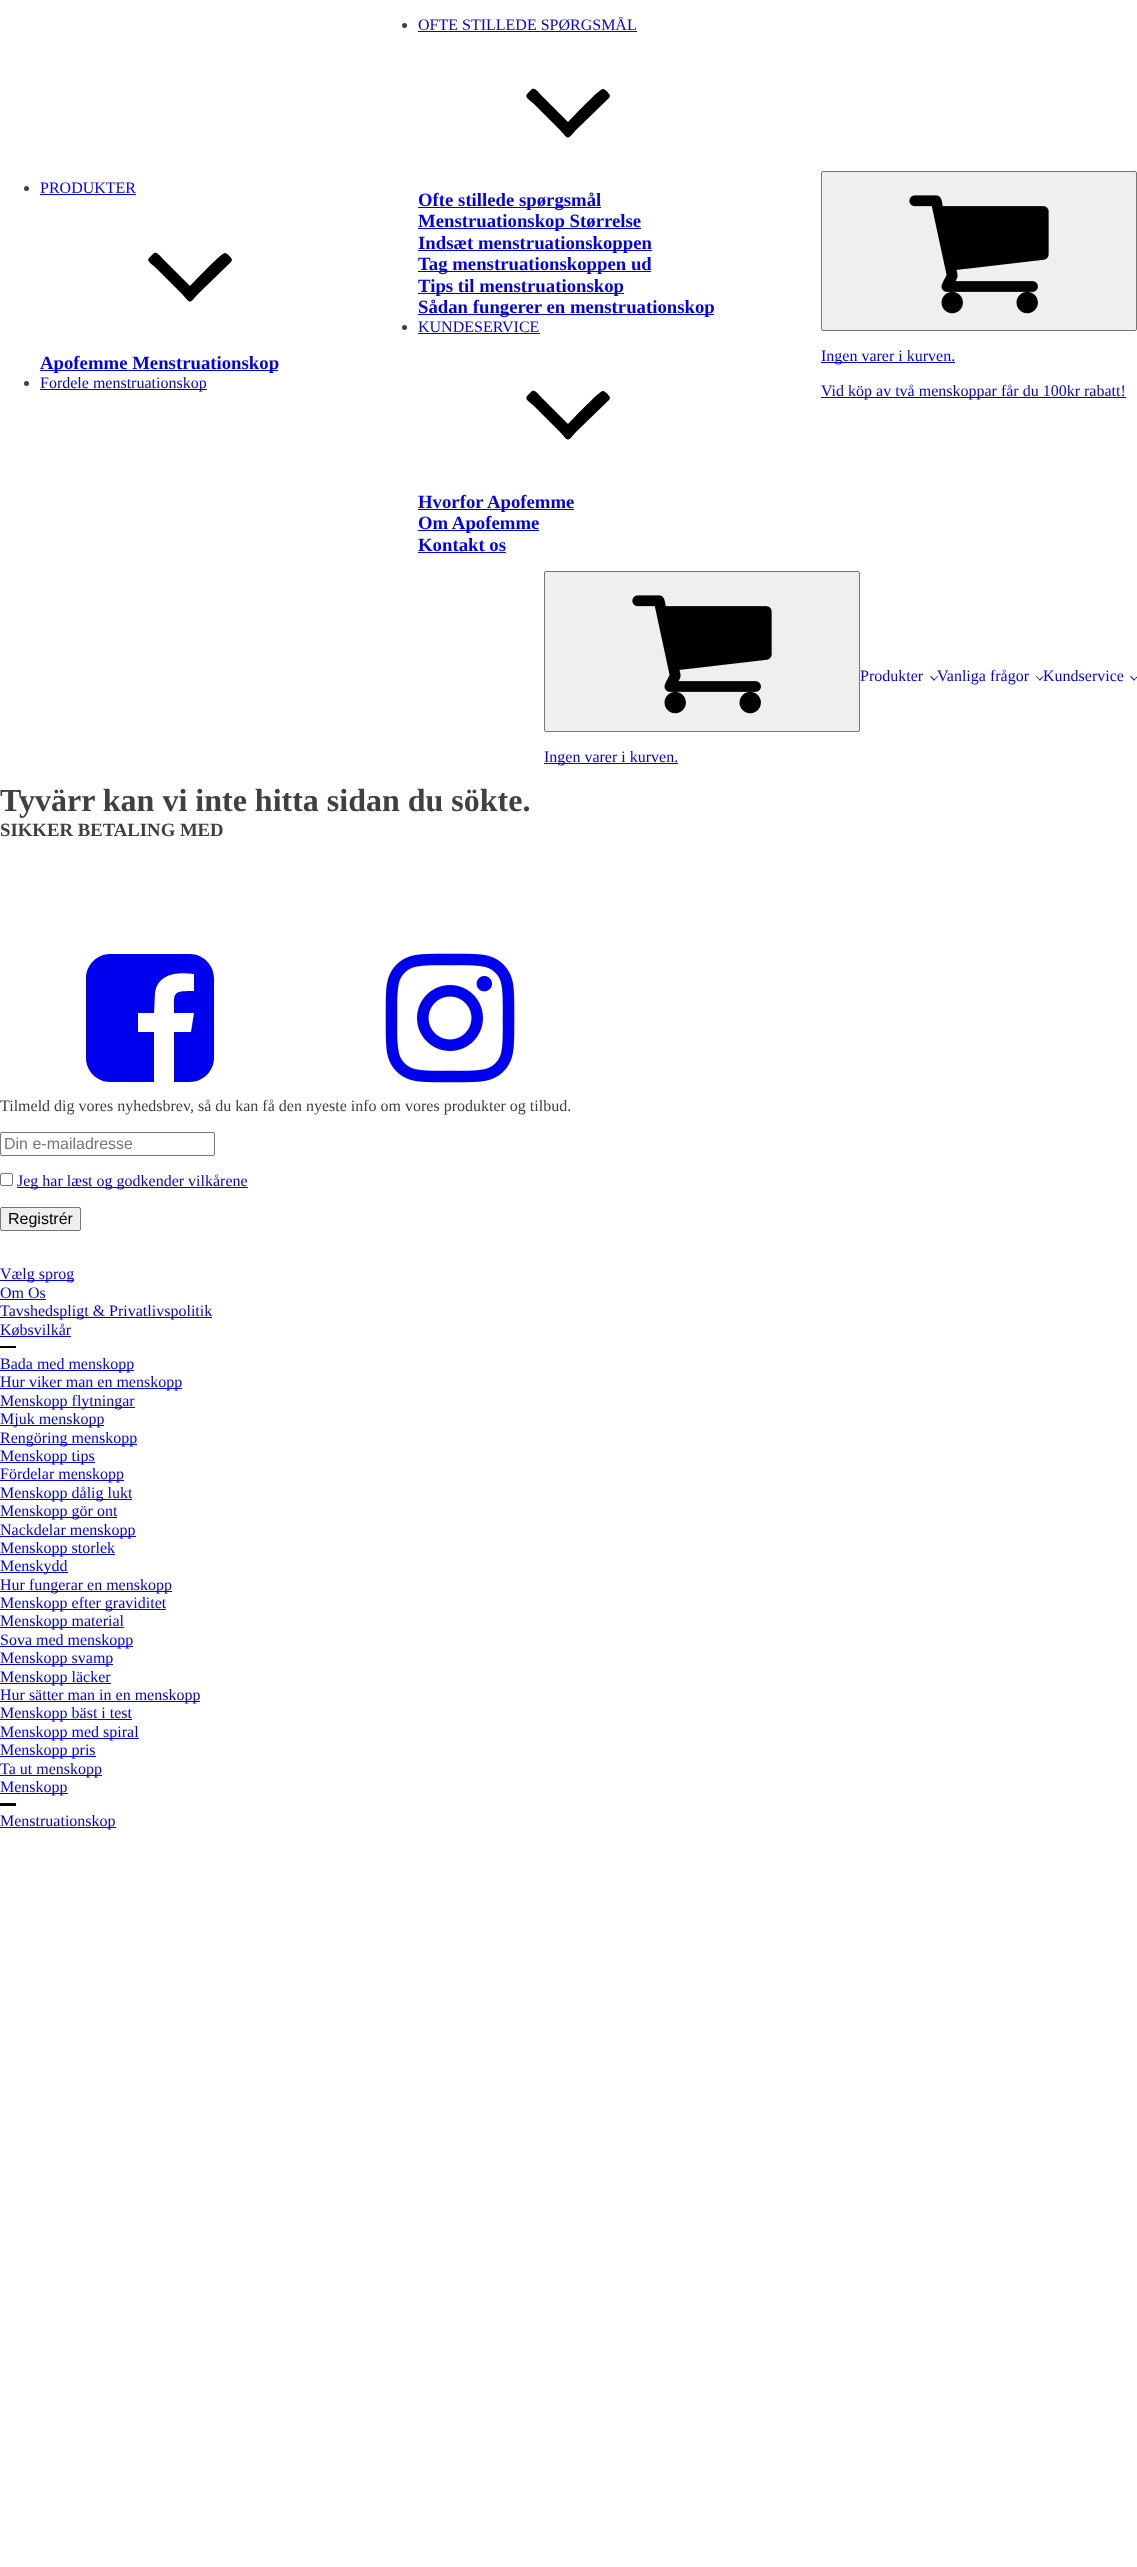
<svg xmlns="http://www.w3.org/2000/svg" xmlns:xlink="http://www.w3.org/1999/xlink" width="1137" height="2567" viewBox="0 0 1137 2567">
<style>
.cls-1{font:16px Liberation Serif;fill:#0000ee}
.cls-2{font:bold 18.75px Liberation Serif;fill:#0000ee}
.cls-3{font:bold 32px Liberation Serif;fill:#404040}
.cls-4{font:bold 18.75px Liberation Serif;fill:#404040}
.cls-5{font:16px Liberation Serif;fill:#404040}
.cls-6{font:16px Liberation Sans;fill:#757575}
.cls-7{font:16px Liberation Sans;fill:#000000}
</style>
<rect width="100%" height="100%" fill="#ffffff"/>
<circle fill="#404040" cx="26.5" cy="188.5" r="2.5"/>
<rect fill="#0000ee" x="40" y="194" width="96" height="1"/>
<path fill="#000000" d="M232 260L231 262L198 294C189 304 191 304 182 294L156 268C152 264 145 261 150 257L154 253C157 251 162 258 163 259L190 286C194 282 222 252 225 253C227 253 232 258 232 260Z"/>
<rect fill="#0000ee" x="40" y="370" width="238" height="1"/>
<circle fill="#404040" cx="26.5" cy="383.5" r="2.5"/>
<rect fill="#0000ee" x="40" y="389" width="167" height="1"/>
<circle fill="#404040" cx="404.5" cy="25.5" r="2.5"/>
<rect fill="#0000ee" x="418" y="31" width="219" height="1"/>
<path fill="#000000" d="M610 96L609 98L576 130C567 140 569 140 560 130L534 104C530 100 523 97 528 93L532 89C535 87 540 94 541 95L568 122C572 118 600 88 603 89C605 89 610 94 610 96Z"/>
<rect fill="#0000ee" x="418" y="207" width="183" height="1"/>
<rect fill="#0000ee" x="418" y="228" width="223" height="1"/>
<rect fill="#0000ee" x="418" y="250" width="234" height="1"/>
<rect fill="#0000ee" x="418" y="271" width="233" height="1"/>
<rect fill="#0000ee" x="418" y="293" width="206" height="1"/>
<rect fill="#0000ee" x="418" y="314" width="296" height="1"/>
<circle fill="#404040" cx="404.5" cy="327.5" r="2.5"/>
<rect fill="#0000ee" x="418" y="333" width="122" height="1"/>
<path fill="#000000" d="M610 398L609 400L576 432C567 442 569 442 560 432L534 406C530 402 523 399 528 395L532 391C535 389 540 396 541 397L568 424C572 420 600 390 603 391C605 391 610 396 610 398Z"/>
<rect fill="#0000ee" x="418" y="509" width="156" height="1"/>
<rect fill="#0000ee" x="418" y="530" width="121" height="1"/>
<rect fill="#0000ee" x="418" y="552" width="88" height="1"/>
<rect fill="#efefef" stroke="#767676" x="821.5" y="171.5" width="315" height="159" rx="1.5"/>
<image xlink:href="image0.png" x="909" y="195" width="140" height="119"/>
<rect fill="#0000ee" x="821" y="362" width="134" height="1"/>
<rect fill="#0000ee" x="821" y="397" width="305" height="1"/>
<path fill="#0000ee" d="M938 676.5L934 680.5L933.5 680L937.5 676Z"/>
<path fill="#0000ee" d="M935 680L934 680.5L930 676.5L931 676Z"/>
<path fill="#0000ee" d="M1043.5 676.5L1040 680.5L1039 680L1043 676Z"/>
<path fill="#0000ee" d="M1040.5 680L1040 680.5L1036 676.5L1036.5 676Z"/>
<path fill="#0000ee" d="M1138 676.5L1134 680.5L1133.5 680L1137.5 676Z"/>
<path fill="#0000ee" d="M1135 680L1134 680.5L1130 676.5L1131 676Z"/>
<rect fill="#efefef" stroke="#767676" x="544.5" y="571.5" width="315" height="160" rx="1.5"/>
<image xlink:href="image0.png" x="632" y="595" width="140" height="119"/>
<rect fill="#0000ee" x="544" y="763" width="134" height="1"/>
<path fill="#0000ee" d="M190 954C203 954 214 965 214 978V1058C214 1071 203 1082 190 1082H174V1032H191L194 1013H174C174 992 172 991 194 991V974C178 972 158 973 155 993L154 1013H138V1032H154V1082H110C97 1082 86 1071 86 1058V978C86 965 97 954 110 954Z"/>
<image xlink:href="image1.png" x="385" y="953" width="130" height="130"/>
<rect fill="none" stroke="#767676" x="0.5" y="1132.5" width="214" height="23" rx="1.5"/>
<rect fill="none" stroke="#767676" x="0.5" y="1173.5" width="12" height="12" rx="1.5"/>
<rect fill="#0000ee" x="17" y="1187" width="231" height="1"/>
<rect fill="#efefef" stroke="#767676" x="0.5" y="1207.5" width="80" height="23" rx="1.5"/>
<rect fill="#0000ee" x="0" y="1280" width="74" height="1"/>
<rect fill="#0000ee" x="0" y="1299" width="46" height="1"/>
<rect fill="#0000ee" x="0" y="1317" width="212" height="1"/>
<rect fill="#0000ee" x="0" y="1336" width="71" height="1"/>
<rect fill="#000000" x="0" y="1346" width="16" height="2" rx="0.5"/>
<rect fill="#0000ee" x="0" y="1370" width="134" height="1"/>
<rect fill="#0000ee" x="0" y="1388" width="182" height="1"/>
<rect fill="#0000ee" x="0" y="1407" width="135" height="1"/>
<rect fill="#0000ee" x="0" y="1425" width="104" height="1"/>
<rect fill="#0000ee" x="0" y="1444" width="137" height="1"/>
<rect fill="#0000ee" x="0" y="1462" width="95" height="1"/>
<rect fill="#0000ee" x="0" y="1480" width="124" height="1"/>
<rect fill="#0000ee" x="0" y="1499" width="132" height="1"/>
<rect fill="#0000ee" x="0" y="1517" width="117" height="1"/>
<rect fill="#0000ee" x="0" y="1536" width="136" height="1"/>
<rect fill="#0000ee" x="0" y="1554" width="115" height="1"/>
<rect fill="#0000ee" x="0" y="1572" width="68" height="1"/>
<rect fill="#0000ee" x="0" y="1591" width="172" height="1"/>
<rect fill="#0000ee" x="0" y="1609" width="166" height="1"/>
<rect fill="#0000ee" x="0" y="1627" width="124" height="1"/>
<rect fill="#0000ee" x="0" y="1646" width="133" height="1"/>
<rect fill="#0000ee" x="0" y="1664" width="113" height="1"/>
<rect fill="#0000ee" x="0" y="1683" width="111" height="1"/>
<rect fill="#0000ee" x="0" y="1701" width="200" height="1"/>
<rect fill="#0000ee" x="0" y="1719" width="132" height="1"/>
<rect fill="#0000ee" x="0" y="1738" width="139" height="1"/>
<rect fill="#0000ee" x="0" y="1756" width="96" height="1"/>
<rect fill="#0000ee" x="0" y="1775" width="102" height="1"/>
<rect fill="#0000ee" x="0" y="1793" width="68" height="1"/>
<rect fill="#000000" x="0" y="1803" width="16" height="3" rx="0.5"/>
<rect fill="#0000ee" x="0" y="1827" width="116" height="1"/>
<text class="cls-1" x="40" y="193">PRODUKTER</text>
<text class="cls-2" x="40" y="369">Apofemme Menstruationskop</text>
<text class="cls-1" x="40" y="388">Fordele menstruationskop</text>
<text class="cls-1" x="418" y="30">OFTE STILLEDE SPØRGSMÅL</text>
<text class="cls-2"><tspan x="418" y="206">Ofte stillede spørgsmål</tspan><tspan x="418" y="227">Menstruationskop Størrelse</tspan><tspan x="418" y="249">Indsæt menstruationskoppen</tspan><tspan x="418" y="270">Tag menstruationskoppen ud</tspan><tspan x="418" y="292">Tips til menstruationskop</tspan><tspan x="418" y="313">Sådan fungerer en menstruationskop</tspan></text>
<text class="cls-1" x="418" y="332">KUNDESERVICE</text>
<text class="cls-2"><tspan x="418" y="508">Hvorfor Apofemme</tspan><tspan x="418" y="529">Om Apofemme</tspan><tspan x="418" y="551">Kontakt os</tspan></text>
<text class="cls-1" x="821" y="361">Ingen varer i kurven.</text>
<text class="cls-1" x="821" y="396">Vid köp av två menskoppar får du 100kr rabatt!</text>
<text class="cls-1" x="860" y="681">Produkter</text>
<text class="cls-1" x="937" y="681">Vanliga frågor</text>
<text class="cls-1" x="1043" y="681">Kundservice</text>
<text class="cls-1" x="544" y="762">Ingen varer i kurven.</text>
<text class="cls-3" x="0" y="811">Tyvärr kan vi inte hitta sidan du sökte.</text>
<text class="cls-4" x="0" y="836">SIKKER BETALING MED</text>
<text class="cls-5" x="0" y="1111">Tilmeld dig vores nyhedsbrev, så du kan få den nyeste info om vores produkter og tilbud.</text>
<text class="cls-6" x="4" y="1149">Din e-mailadresse</text>
<text class="cls-1" x="17" y="1186">Jeg har læst og godkender vilkårene</text>
<text class="cls-7" x="8" y="1224">Registrér</text>
<text class="cls-1"><tspan x="0" y="1279">Vælg sprog</tspan><tspan x="0" y="1298">Om Os</tspan><tspan x="0" y="1316">Tavshedspligt &amp; Privatlivspolitik</tspan><tspan x="0" y="1335">Købsvilkår</tspan></text>
<text class="cls-1"><tspan x="0" y="1369">Bada med menskopp</tspan><tspan x="0" y="1387">Hur viker man en menskopp</tspan><tspan x="0" y="1406">Menskopp flytningar</tspan><tspan x="0" y="1424">Mjuk menskopp</tspan><tspan x="0" y="1443">Rengöring menskopp</tspan><tspan x="0" y="1461">Menskopp tips</tspan><tspan x="0" y="1479">Fördelar menskopp</tspan><tspan x="0" y="1498">Menskopp dålig lukt</tspan><tspan x="0" y="1516">Menskopp gör ont</tspan><tspan x="0" y="1535">Nackdelar menskopp</tspan><tspan x="0" y="1553">Menskopp storlek</tspan><tspan x="0" y="1571">Menskydd</tspan><tspan x="0" y="1590">Hur fungerar en menskopp</tspan><tspan x="0" y="1608">Menskopp efter graviditet</tspan><tspan x="0" y="1626">Menskopp material</tspan><tspan x="0" y="1645">Sova med menskopp</tspan><tspan x="0" y="1663">Menskopp svamp</tspan><tspan x="0" y="1682">Menskopp läcker</tspan><tspan x="0" y="1700">Hur sätter man in en menskopp</tspan><tspan x="0" y="1718">Menskopp bäst i test</tspan><tspan x="0" y="1737">Menskopp med spiral</tspan><tspan x="0" y="1755">Menskopp pris</tspan><tspan x="0" y="1774">Ta ut menskopp</tspan><tspan x="0" y="1792">Menskopp</tspan></text>
<text class="cls-1" x="0" y="1826">Menstruationskop</text>
</svg>
